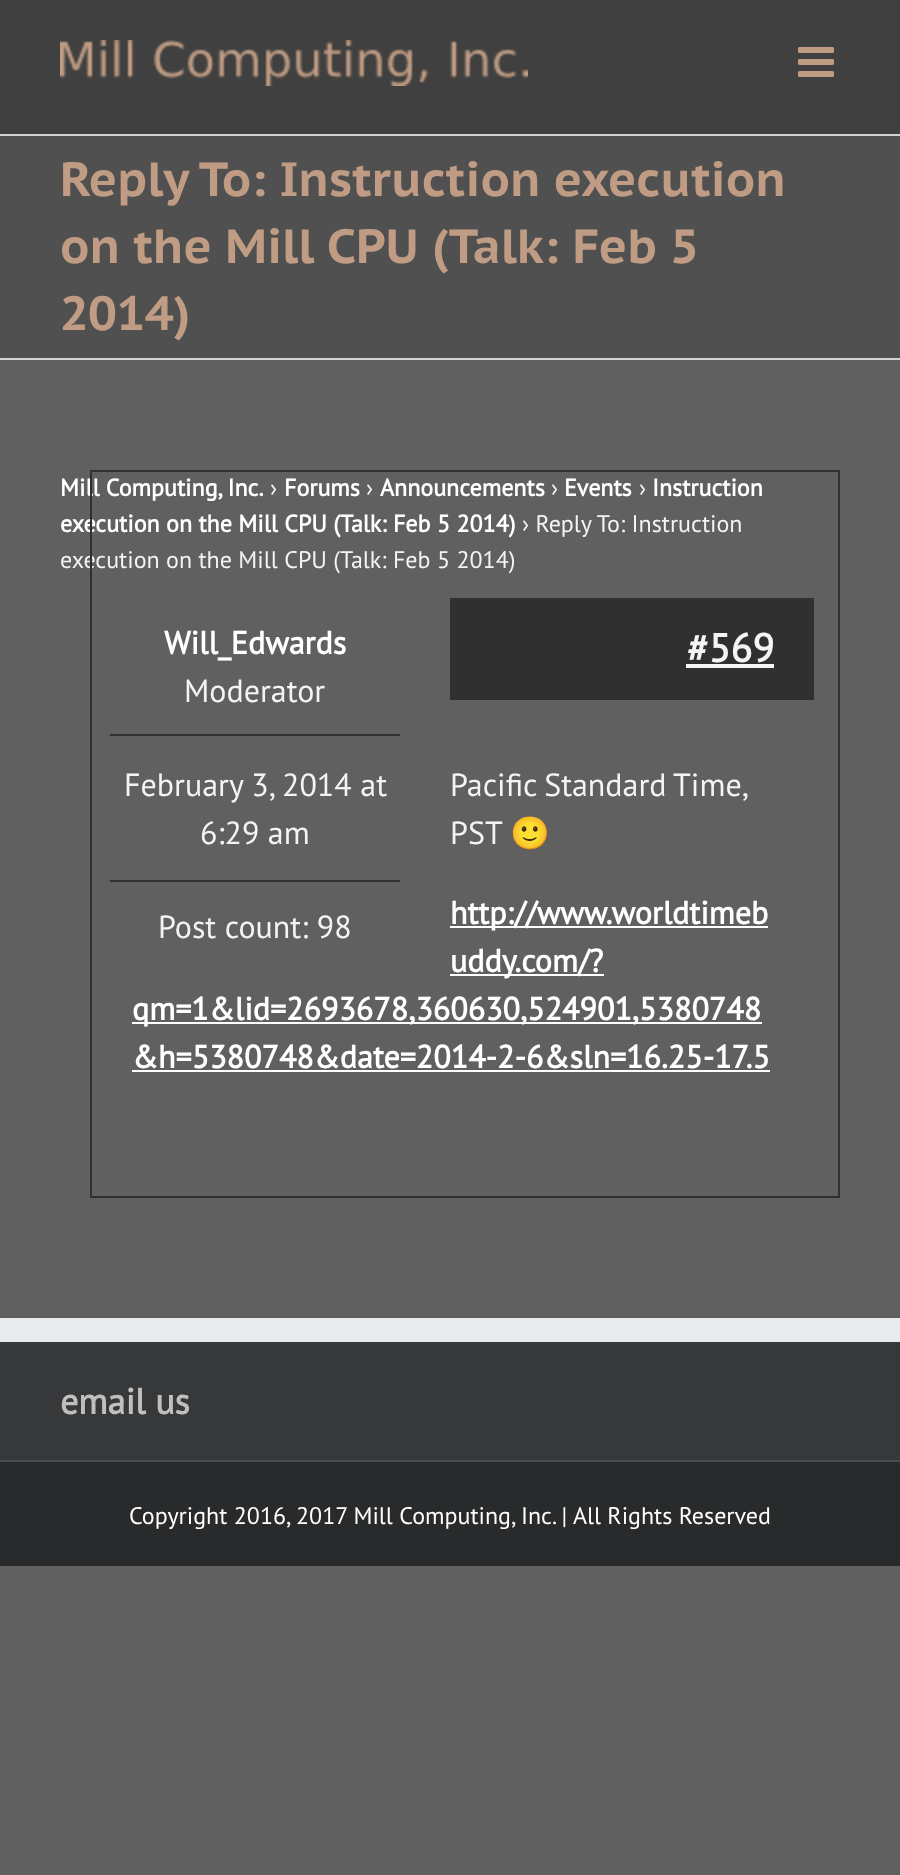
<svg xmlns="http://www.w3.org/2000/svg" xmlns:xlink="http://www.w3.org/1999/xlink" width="900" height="1875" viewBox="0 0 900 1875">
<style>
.cls-1{font:bold 48px PT Sans Caption;fill:#bf9c83}
.cls-2{font:bold 24px PT Sans;fill:#ffffff}
.cls-3{font:24px PT Sans;fill:#f4f4f4}
.cls-4{font:bold 32px PT Sans;fill:#ffffff}
.cls-5{font:32px PT Sans;fill:#f4f4f4}
.cls-6{font:bold 40px PT Sans;fill:#f4f4f4}
.cls-7{font:32px Noto Color Emoji;fill:#f4f4f4}
.cls-8{font:bold 36px PT Sans;fill:#bfbfbf}
.cls-9{font:24px PT Sans;fill:#ffffff}
</style>
<rect width="100%" height="100%" fill="#606060"/>
<rect fill="#404040" x="0" y="0" width="900" height="134"/>
<image xlink:href="image0.png" x="60" y="40" width="468" height="46"/>
<image xlink:href="image1.png" x="798" y="47" width="36" height="30"/>
<rect fill="#505050" x="0" y="136" width="900" height="222"/>
<rect fill="#d2d3d4" x="0" y="134" width="900" height="2"/>
<rect fill="#d2d3d4" x="0" y="358" width="900" height="2"/>
<rect fill="#303030" x="110" y="734" width="290" height="2"/>
<rect fill="#303030" x="110" y="880" width="290" height="2"/>
<rect fill="#363839" x="0" y="1342" width="900" height="118"/>
<rect fill="#e9eaee" x="0" y="1318" width="900" height="24"/>
<rect fill="#282a2b" x="0" y="1462" width="900" height="104"/>
<rect fill="#4b4c4d" x="0" y="1460" width="900" height="2"/>
<text class="cls-1"><tspan x="60" y="196">Reply To: Instruction execution</tspan><tspan x="60" y="263">on the Mill CPU (Talk: Feb 5</tspan><tspan x="60" y="330">2014)</tspan></text>
<text class="cls-2" x="60" y="496">Mill Computing, Inc.</text>
<text class="cls-3" x="270" y="496">›</text>
<text class="cls-2" x="284" y="496">Forums</text>
<text class="cls-3" x="366" y="496">›</text>
<text class="cls-2" x="380" y="496">Announcements</text>
<text class="cls-3" x="551" y="496">›</text>
<text class="cls-2" x="564" y="496">Events</text>
<text class="cls-3" x="639" y="496">›</text>
<text class="cls-2" x="652" y="496">Instruction</text>
<text class="cls-2" x="60" y="532">execution on the Mill CPU (Talk: Feb 5 2014)</text>
<text class="cls-3" x="522" y="532">› Reply To: Instruction</text>
<text class="cls-3" x="60" y="568">execution on the Mill CPU (Talk: Feb 5 2014)</text>
<text class="cls-4" x="164" y="654">Will_Edwards</text>
<text class="cls-5" x="184" y="702">Moderator</text>
<text class="cls-5" x="124" y="796">February 3, 2014 at</text>
<text class="cls-5" x="200" y="844">6:29 am</text>
<text class="cls-5" x="158" y="938">Post count: 98</text>
<rect fill="none" stroke="#303030" stroke-width="2" x="91" y="471" width="748" height="726"/>
<rect fill="#303030" x="450" y="598" width="364" height="102"/>
<text class="cls-6" x="687" y="662">#569</text>
<rect fill="#f4f4f4" x="686" y="664" width="88" height="4"/>
<text class="cls-5"><tspan x="450" y="796" word-spacing="-1">Pacific Standard Time,</tspan><tspan x="450" y="844">PST</tspan></text>
<text class="cls-7" x="510" y="844">🙂</text>
<rect fill="#ffffff" x="450" y="926" width="318" height="2"/>
<text class="cls-4" x="450" y="924">http://www.worldtimeb</text>
<rect fill="#ffffff" x="450" y="974" width="154" height="2"/>
<text class="cls-4" x="450" y="972">uddy.com/?</text>
<rect fill="#ffffff" x="132" y="1022" width="630" height="2"/>
<text class="cls-4"><tspan x="132" y="1020">qm=1&amp;lid=2693678,360630,524901,5380748</tspan><tspan x="132" y="1068">&amp;h=5380748&amp;date=2014-2-6&amp;sln=16.25-17.5</tspan></text>
<rect fill="#ffffff" x="132" y="1070" width="638" height="2"/>
<text class="cls-8" x="60" y="1414">email us</text>
<text class="cls-9" x="129" y="1524">Copyright 2016, 2017 Mill Computing, Inc. | All Rights Reserved</text>
</svg>
